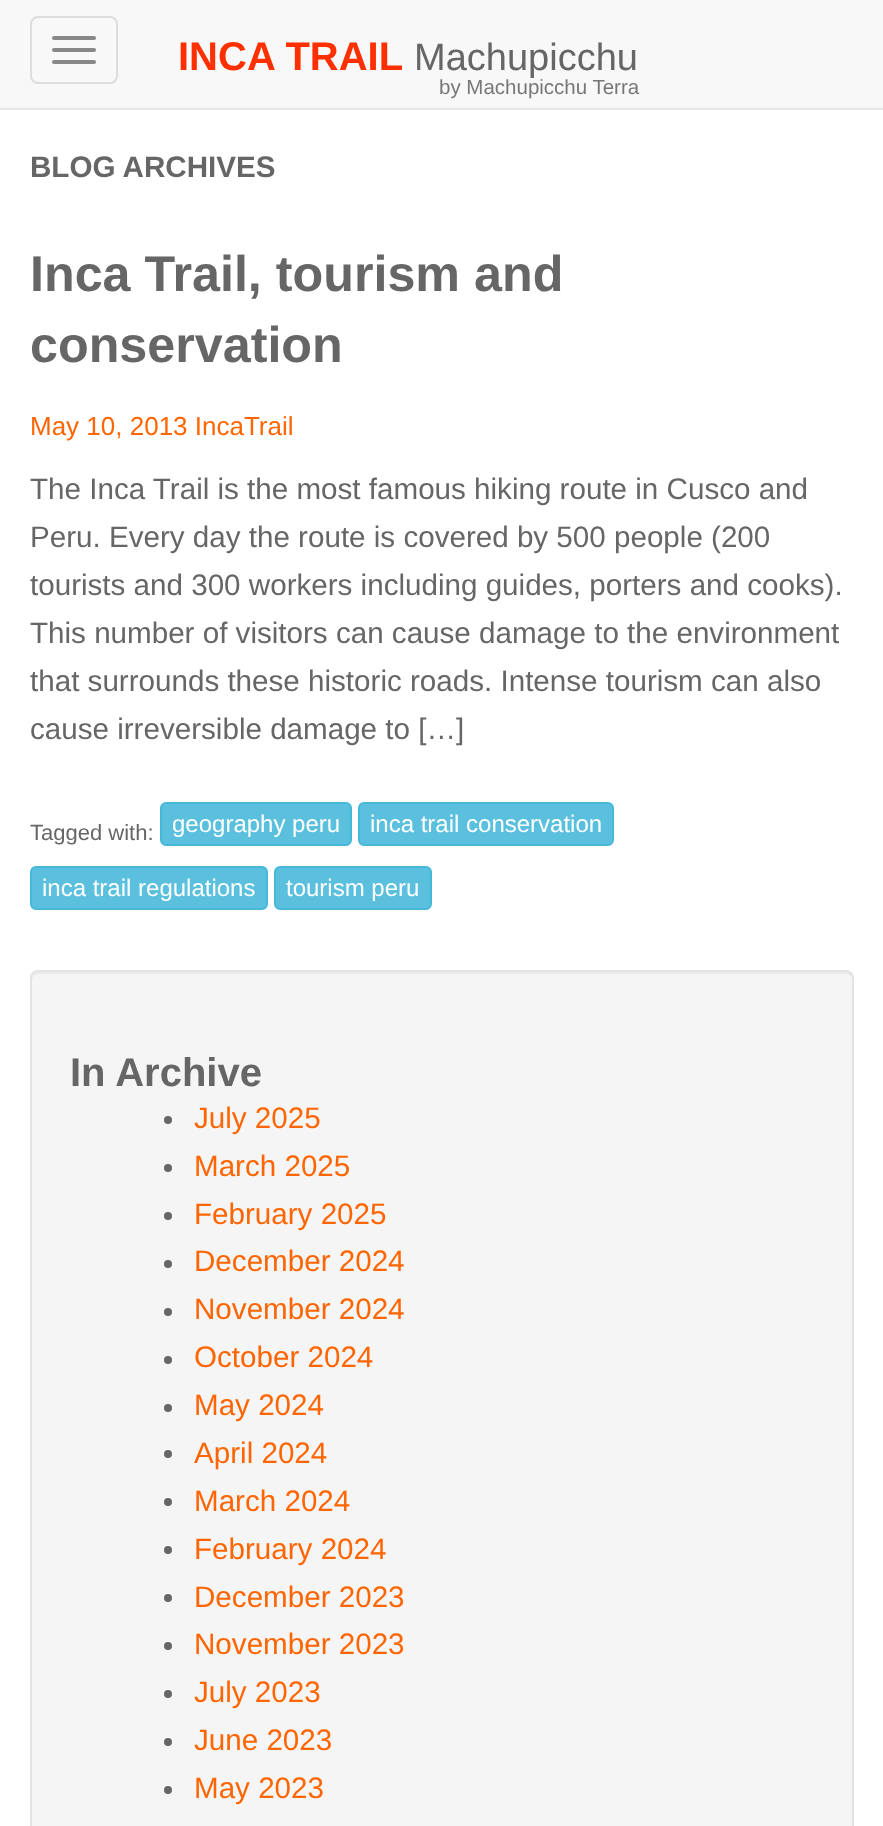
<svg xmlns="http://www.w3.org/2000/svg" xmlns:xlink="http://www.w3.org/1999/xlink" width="883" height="1826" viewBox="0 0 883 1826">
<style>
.cls-1{font:bold 40px Liberation Sans;fill:#ff3000}
.cls-2{font:38px Liberation Sans;fill:#666666}
.cls-3{font:20.5px Liberation Sans;fill:#777777}
.cls-4{font:bold 29.6px Liberation Sans;fill:#666666}
.cls-5{font:bold 50.25px Liberation Sans;fill:#666666}
.cls-6{font:26px Liberation Sans;fill:#ff6500}
.cls-7{font:29.6px Liberation Sans;fill:#666666}
.cls-8{font:22px Liberation Sans;fill:#666666}
.cls-9{font:24px Liberation Sans;fill:#ffffff}
.cls-10{font:bold 40px Liberation Sans;fill:#666666}
.cls-11{font:29.6px Liberation Sans;fill:#ff6500}
</style>
<rect width="100%" height="100%" fill="#ffffff"/>
<rect fill="#f8f8f8" x="0" y="0" width="883" height="108"/>
<rect fill="#e7e7e7" x="0" y="108" width="883" height="2"/>
<rect fill="none" stroke="#dddddd" stroke-width="2" x="31" y="17" width="86" height="66" rx="7"/>
<rect fill="#888888" x="52" y="36" width="44" height="4" rx="2"/>
<rect fill="#888888" x="52" y="48" width="44" height="4" rx="2"/>
<rect fill="#888888" x="52" y="60" width="44" height="4" rx="2"/>
<rect fill="#5bc0de" stroke="#46b8da" stroke-width="2" x="161" y="803" width="190" height="42" rx="5"/>
<rect fill="#5bc0de" stroke="#46b8da" stroke-width="2" x="359" y="803" width="254" height="42" rx="5"/>
<rect fill="#5bc0de" stroke="#46b8da" stroke-width="2" x="31" y="867" width="236" height="42" rx="5"/>
<rect fill="#5bc0de" stroke="#46b8da" stroke-width="2" x="275" y="867" width="156" height="42" rx="5"/>
<rect fill="#f5f5f5" x="30" y="970" width="824" height="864" rx="8"/>
<path fill="#e9e9e9" d="M38 974H846C849 974 852 977 852 980C852 976 851 972 846 972H38C33 972 32 976 32 980C32 977 35 974 38 974Z"/>
<rect fill="none" stroke="#e3e3e3" stroke-width="2" x="31" y="971" width="822" height="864" rx="7"/>
<circle fill="#666666" cx="168" cy="1120" r="4"/>
<circle fill="#666666" cx="168" cy="1168" r="4"/>
<circle fill="#666666" cx="168" cy="1216" r="4"/>
<circle fill="#666666" cx="168" cy="1264" r="4"/>
<circle fill="#666666" cx="168" cy="1312" r="4"/>
<circle fill="#666666" cx="168" cy="1360" r="4"/>
<circle fill="#666666" cx="168" cy="1408" r="4"/>
<circle fill="#666666" cx="168" cy="1454" r="4"/>
<circle fill="#666666" cx="168" cy="1502" r="4"/>
<circle fill="#666666" cx="168" cy="1550" r="4"/>
<circle fill="#666666" cx="168" cy="1598" r="4"/>
<circle fill="#666666" cx="168" cy="1646" r="4"/>
<circle fill="#666666" cx="168" cy="1694" r="4"/>
<circle fill="#666666" cx="168" cy="1742" r="4"/>
<circle fill="#666666" cx="168" cy="1790" r="4"/>
<text class="cls-1" x="178" y="70">INCA TRAIL</text>
<text class="cls-2" x="414" y="70">Machupicchu</text>
<text class="cls-3" x="439" y="94">by Machupicchu Terra</text>
<text class="cls-4" x="30" y="177">BLOG ARCHIVES</text>
<text class="cls-5"><tspan x="30" y="291">Inca Trail, tourism and</tspan><tspan x="30" y="362">conservation</tspan></text>
<text class="cls-6" x="30" y="435">May 10, 2013 IncaTrail</text>
<text class="cls-7"><tspan x="30" y="499">The Inca Trail is the most famous hiking route in Cusco and</tspan><tspan x="30" y="547">Peru. Every day the route is covered by 500 people (200</tspan><tspan x="30" y="595">tourists and 300 workers including guides, porters and cooks).</tspan><tspan x="30" y="643">This number of visitors can cause damage to the environment</tspan><tspan x="30" y="691">that surrounds these historic roads. Intense tourism can also</tspan><tspan x="30" y="739">cause irreversible damage to […]</tspan></text>
<text class="cls-8" x="30" y="840">Tagged with:</text>
<text class="cls-9" x="172" y="832">geography peru</text>
<text class="cls-9" x="370" y="832">inca trail conservation</text>
<text class="cls-9" x="42" y="896">inca trail regulations</text>
<text class="cls-9" x="286" y="896">tourism peru</text>
<text class="cls-10" x="70" y="1086">In Archive</text>
<text class="cls-11"><tspan x="194" y="1128">July 2025</tspan><tspan x="194" y="1176">March 2025</tspan><tspan x="194" y="1224">February 2025</tspan><tspan x="194" y="1271">December 2024</tspan><tspan x="194" y="1319">November 2024</tspan><tspan x="194" y="1367">October 2024</tspan><tspan x="194" y="1415">May 2024</tspan><tspan x="194" y="1463">April 2024</tspan><tspan x="194" y="1511">March 2024</tspan><tspan x="194" y="1559">February 2024</tspan><tspan x="194" y="1607">December 2023</tspan><tspan x="194" y="1654">November 2023</tspan><tspan x="194" y="1702">July 2023</tspan><tspan x="194" y="1750">June 2023</tspan><tspan x="194" y="1798">May 2023</tspan></text>
</svg>
